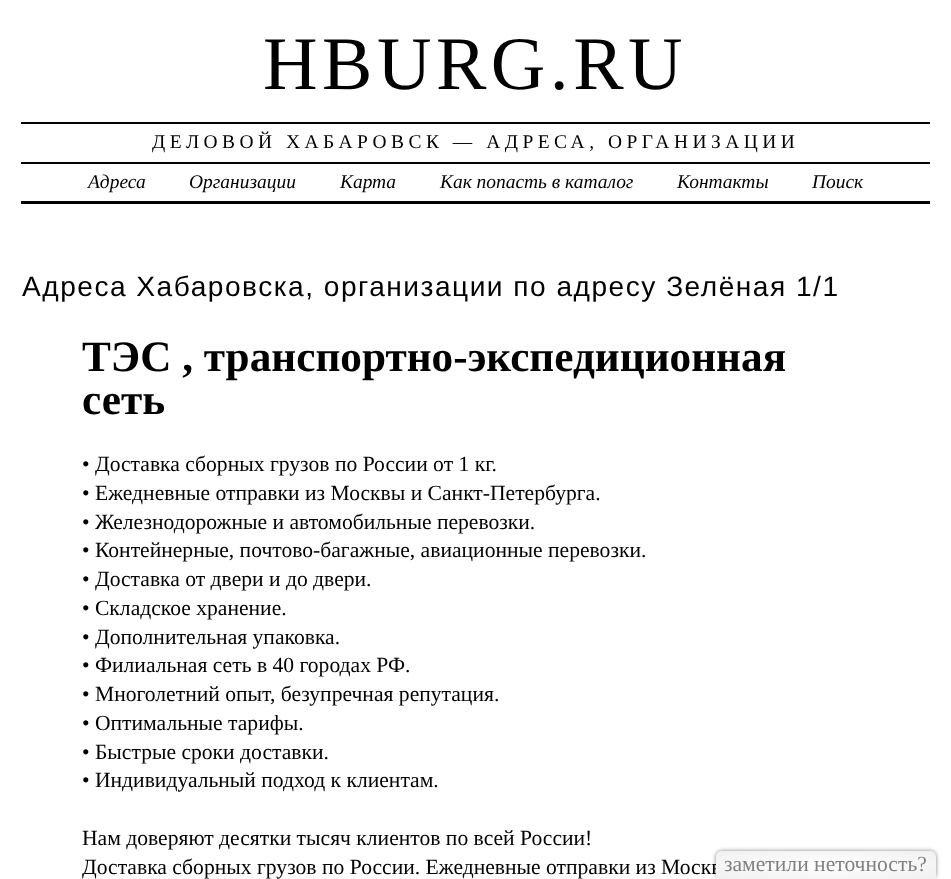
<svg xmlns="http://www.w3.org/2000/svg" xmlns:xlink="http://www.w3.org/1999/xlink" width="951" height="879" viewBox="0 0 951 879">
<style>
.cls-1{font:75.5px Liberation Serif;letter-spacing:4.5px;fill:#000000}
.cls-2{font:19.45px Liberation Serif;letter-spacing:4.5px;fill:#000000}
.cls-3{font:italic 19.45px Liberation Serif;fill:#000000}
.cls-4{font:28.1px Liberation Sans;letter-spacing:1.5px;fill:#000000}
.cls-5{font:bold 43.25px Liberation Serif;fill:#000000}
.cls-6{font:21.6px Liberation Serif;fill:#000000}
.cls-7{font:21.6px Liberation Serif;fill:#808080}
</style>
<defs>
<radialGradient id="g1" gradientUnits="userSpaceOnUse" cx="0" cy="0" r="1" gradientTransform="matrix(156 0 0 20 826 865)"><stop offset="0" stop-color="#ffffff"/><stop offset="1" stop-color="#f0f0f0"/></radialGradient>
</defs>
<rect width="100%" height="100%" fill="#ffffff"/>
<rect fill="#000000" x="21" y="122" width="909" height="2"/>
<rect fill="#000000" x="21" y="162" width="909" height="2"/>
<rect fill="#000000" x="21" y="201" width="909" height="3"/>
<rect fill="#808080" filter="blur(2px)" x="716" y="851" width="220" height="28" rx="6"/>
<text class="cls-1" x="263" y="89">HBURG.RU</text>
<text class="cls-2" x="152" y="148">ДЕЛОВОЙ ХАБАРОВСК — АДРЕСА, ОРГАНИЗАЦИИ</text>
<text class="cls-3" x="88" y="188">Адреса</text>
<text class="cls-3" x="189" y="188">Организации</text>
<text class="cls-3" x="340" y="188">Карта</text>
<text class="cls-3" x="440" y="188">Как попасть в каталог</text>
<text class="cls-3" x="677" y="188">Контакты</text>
<text class="cls-3" x="812" y="188">Поиск</text>
<text class="cls-4" x="22" y="296">Адреса Хабаровска, организации по адресу Зелёная 1/1</text>
<text class="cls-5"><tspan x="82" y="371">ТЭС , транспортно-экспедиционная</tspan><tspan x="82" y="414">сеть</tspan></text>
<text class="cls-6"><tspan x="82" y="471">• Доставка сборных грузов по России от 1 кг.</tspan><tspan x="82" y="500">• Ежедневные отправки из Москвы и Санкт-Петербурга.</tspan><tspan x="82" y="529">• Железнодорожные и автомобильные перевозки.</tspan><tspan x="82" y="557">• Контейнерные, почтово-багажные, авиационные перевозки.</tspan><tspan x="82" y="586">• Доставка от двери и до двери.</tspan><tspan x="82" y="615">• Складское хранение.</tspan><tspan x="82" y="644">• Дополнительная упаковка.</tspan><tspan x="82" y="672">• Филиальная сеть в 40 городах РФ.</tspan><tspan x="82" y="701">• Многолетний опыт, безупречная репутация.</tspan><tspan x="82" y="730">• Оптимальные тарифы.</tspan><tspan x="82" y="759">• Быстрые сроки доставки.</tspan><tspan x="82" y="787">• Индивидуальный подход к клиентам.</tspan></text>
<text class="cls-6"><tspan x="82" y="845">Нам доверяют десятки тысяч клиентов по всей России!</tspan><tspan x="82" y="874">Доставка сборных грузов по России. Ежедневные отправки из Москв</tspan></text>
<path fill="url(#g1)" d="M722 851H930C933.5 851 936 853.5 936 857V879H716V857C716 853.5 718.5 851 722 851Z"/>
<text class="cls-7" x="724" y="871">заметили неточность?</text>
</svg>
